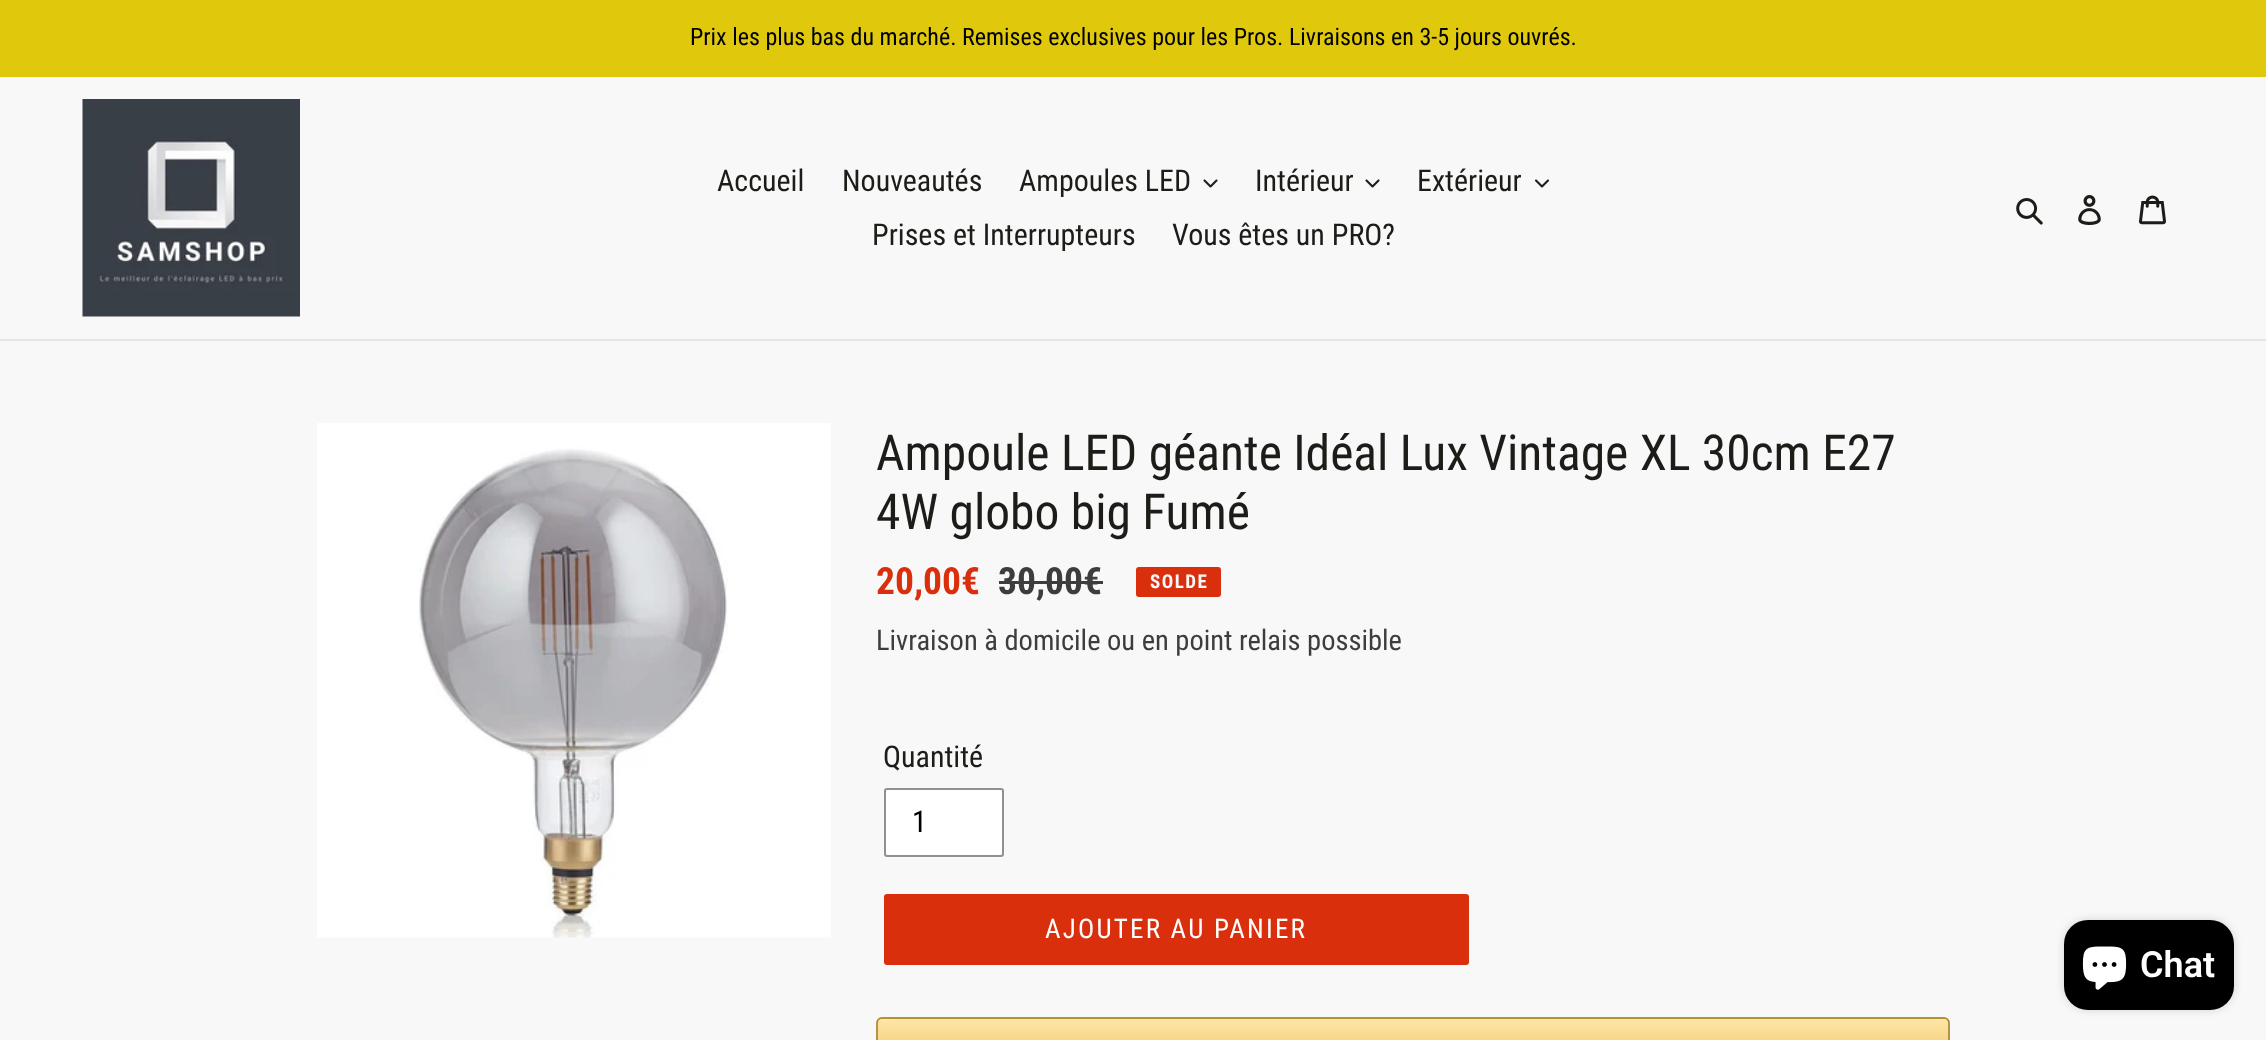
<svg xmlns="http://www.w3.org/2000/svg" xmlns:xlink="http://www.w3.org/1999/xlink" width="2266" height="1040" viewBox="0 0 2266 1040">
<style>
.cls-1{font:24px Roboto Condensed;fill:#000000}
.cls-2{font:30px Roboto Condensed;fill:#1d1c18}
.cls-3{font:49.5px Roboto Condensed;fill:#1d1c18}
.cls-4{font:bold 37.5px Roboto Condensed;fill:#da2f0c}
.cls-5{font:bold 37.5px Roboto Condensed;fill:#3d3d3d}
.cls-6{font:bold 19px Roboto Condensed;letter-spacing:1.5px;fill:#f8f8f8}
.cls-7{font:28.5px Roboto Condensed;fill:#3d3d3d}
.cls-8{font:30px Roboto Condensed;fill:#000000}
.cls-9{font:27px Roboto Condensed;letter-spacing:2.2px;fill:#ffffff}
.cls-10{font:600 36px Roboto;fill:#ffffff}
</style>
<defs>
<clipPath id="clip1"><rect x="876" y="1017" width="1074" height="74" rx="6"/></clipPath>
<linearGradient id="g1" gradientUnits="userSpaceOnUse" x1="1413" y1="948" x2="1413" y2="1019"><stop offset="0" stop-color="#ffe6a8"/><stop offset="1" stop-color="#e2b43f"/></linearGradient>
<linearGradient id="g2" gradientUnits="userSpaceOnUse" x1="1413" y1="1019" x2="1413" y2="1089"><stop offset="0" stop-color="#ffe6a8"/><stop offset="1" stop-color="#e2b43f"/></linearGradient>
</defs>
<rect width="100%" height="100%" fill="#f8f8f8"/>
<rect fill="#e0c90d" x="0" y="0" width="2266" height="77"/>
<rect fill="#e4e4e4" x="0" y="339" width="2266" height="2"/>
<image xlink:href="image0.png" x="82" y="99" width="218" height="218"/>
<image xlink:href="image1.png" x="1203" y="179" width="15" height="9"/>
<image xlink:href="image1.png" x="1365" y="179" width="15" height="9"/>
<image xlink:href="image2.png" x="1535" y="179" width="14" height="9"/>
<image xlink:href="image3.png" x="2016" y="198" width="27" height="27"/>
<image xlink:href="image4.png" x="2078" y="195" width="23" height="30"/>
<image xlink:href="image5.png" x="2139" y="195" width="27" height="30"/>
<image xlink:href="image6.png" x="317" y="423" width="514" height="515"/>
<rect fill="#3d3d3d" x="999" y="581" width="104" height="3"/>
<rect fill="#da2f0c" stroke="#da2f0c" stroke-width="2" x="1137" y="568" width="83" height="28" rx="2"/>
<rect fill="#ffffff" stroke="#909090" stroke-width="2" x="885" y="789" width="118" height="67" rx="2"/>
<rect fill="#da2f0c" x="884" y="894" width="585" height="71" rx="3"/>
<g clip-path="url(#clip1)">
<rect fill="url(#g1)" x="876" y="1017" width="1074" height="2"/>
<rect fill="url(#g2)" x="876" y="1019" width="1074" height="21"/>
</g>
<path fill="none" stroke="#a88734" stroke-width="1.5" d="M878.5 1019.5C879.5 1018.5 880.5 1018 882 1018H1944C1945.5 1018 1946.5 1018.5 1947.5 1019.5"/>
<path fill="none" stroke="#9c7e31" stroke-width="1.5" d="M1947.5 1019.5C1948.5 1020.5 1949 1021.5 1949 1023V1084.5C1949 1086 1948.5 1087 1947.5 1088"/>
<path fill="none" stroke="#9c7e31" stroke-width="1.5" d="M878.5 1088C877.5 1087 877 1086 877 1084.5V1023C877 1021.5 877.5 1020.5 878.5 1019.5"/>
<rect fill="#000000" fill-opacity="0.15" filter="blur(4px)" x="2064" y="920" width="170" height="90" rx="24"/>
<rect fill="#000000" x="2064" y="920" width="170" height="90" rx="24"/>
<image xlink:href="image7.png" x="2082" y="946" width="45" height="44"/>
<text class="cls-1" x="690" y="45">Prix les plus bas du marché. Remises exclusives pour les Pros. Livraisons en 3-5 jours ouvrés.</text>
<text class="cls-2" x="717" y="191">Accueil</text>
<text class="cls-2" x="842" y="191">Nouveautés</text>
<text class="cls-2" x="1019" y="191">Ampoules LED</text>
<text class="cls-2" x="1255" y="191">Intérieur</text>
<text class="cls-2" x="1417" y="191">Extérieur</text>
<text class="cls-2" x="872" y="245">Prises et Interrupteurs</text>
<text class="cls-2" x="1172" y="245">Vous êtes un PRO?</text>
<text class="cls-3"><tspan x="876" y="470">Ampoule LED géante Idéal Lux Vintage XL 30cm E27</tspan><tspan x="876" y="529">4W globo big Fumé</tspan></text>
<text class="cls-4" x="876" y="594">20,00€</text>
<text class="cls-5" x="998" y="594">30,00€</text>
<text class="cls-6" x="1150" y="588">SOLDE</text>
<text class="cls-7" x="876" y="650">Livraison à domicile ou en point relais possible</text>
<text class="cls-2" x="883" y="767">Quantité</text>
<text class="cls-8" x="912" y="832">1</text>
<text class="cls-9" x="1045" y="938">AJOUTER AU PANIER</text>
<text class="cls-10" x="2140" y="977">Chat</text>
</svg>
